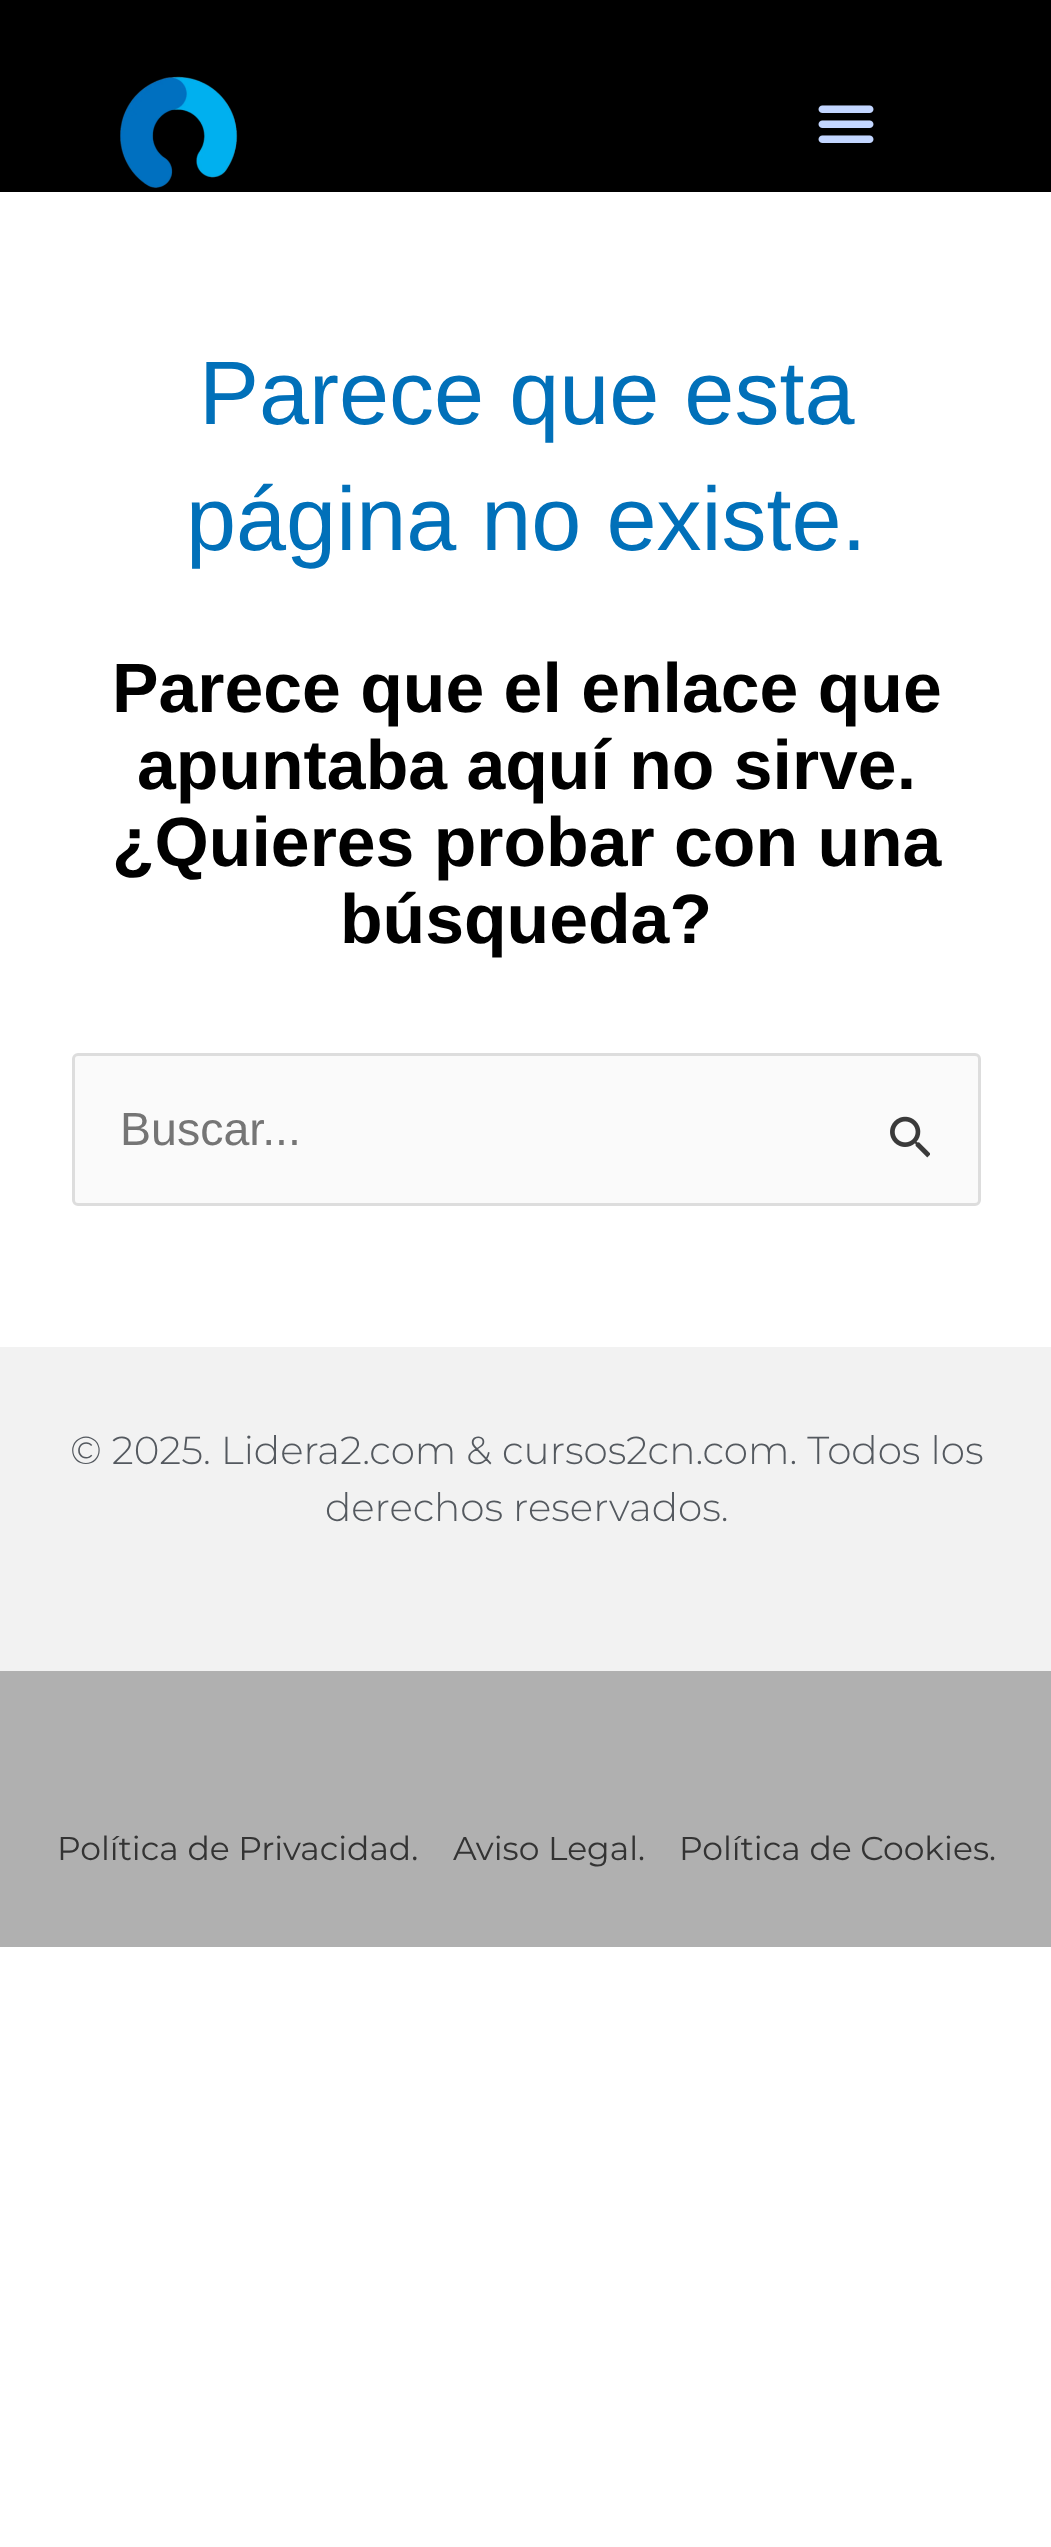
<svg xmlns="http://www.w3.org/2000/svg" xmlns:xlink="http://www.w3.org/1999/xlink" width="1051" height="2547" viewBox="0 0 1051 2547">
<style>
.cls-1{font:90px Liberation Sans;fill:#0170b9}
.cls-2{font:bold 69.75px Liberation Sans;fill:#000000}
.cls-3{font:46.5px Liberation Sans;fill:#757575}
.cls-4{font:300 39px Montserrat;fill:#54595f}
.cls-5{font:33px Montserrat;fill:#333333}
</style>
<rect width="100%" height="100%" fill="#ffffff"/>
<rect fill="#000000" x="0" y="0" width="1051" height="192"/>
<image xlink:href="image0.png" x="120" y="76" width="118" height="112"/>
<image xlink:href="image1.png" x="818" y="105" width="56" height="38"/>
<rect fill="#fafafa" stroke="#dddddd" stroke-width="3" x="73.5" y="1054.5" width="906" height="150" rx="4.5"/>
<image xlink:href="image2.png" x="890" y="1116" width="40" height="42"/>
<rect fill="#f2f2f2" x="0" y="1347" width="1051" height="324"/>
<rect fill="#b0b0b0" x="0" y="1671" width="1051" height="276"/>
<text class="cls-1" x="199" y="424">Parece que esta</text>
<text class="cls-1" x="186" y="550">página no existe.</text>
<text class="cls-2" x="112" y="712">Parece que el enlace que</text>
<text class="cls-2" x="137" y="789">apuntaba aquí no sirve.</text>
<text class="cls-2" x="112" y="866">¿Quieres probar con una</text>
<text class="cls-2" x="340" y="943">búsqueda?</text>
<text class="cls-3" x="120" y="1145">Buscar...</text>
<text class="cls-4" x="70" y="1464">© 2025. Lidera2.com &amp; cursos2cn.com. Todos los</text>
<text class="cls-4" x="325" y="1521">derechos reservados.</text>
<text class="cls-5" x="57" y="1860">Política de Privacidad.</text>
<text class="cls-5" x="453" y="1860">Aviso Legal.</text>
<text class="cls-5" x="679" y="1860">Política de Cookies.</text>
</svg>
